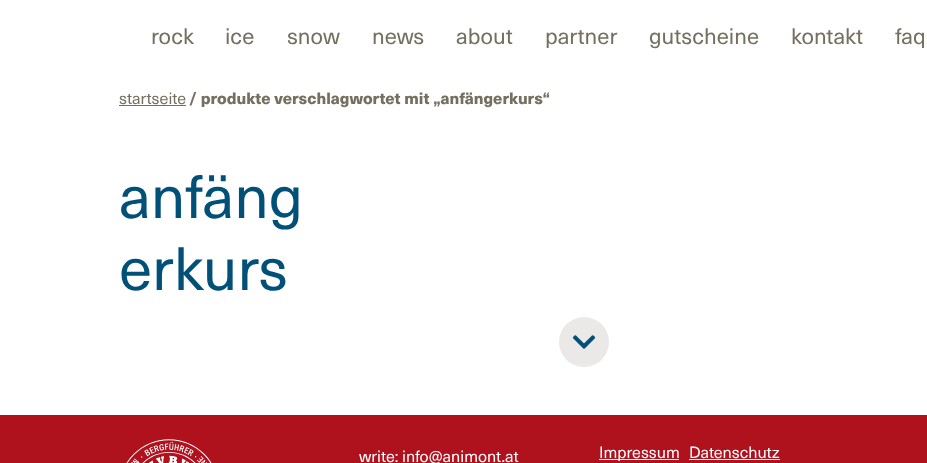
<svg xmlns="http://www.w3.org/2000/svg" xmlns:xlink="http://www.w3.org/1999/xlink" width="927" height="463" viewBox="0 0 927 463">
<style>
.cls-1{font:22px 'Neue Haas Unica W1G';fill:#756f60}
.cls-2{font:16px 'Neue Haas Unica W1G';fill:#756f60}
.cls-3{font:900 16px 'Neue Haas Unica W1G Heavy';fill:#756f60}
.cls-4{font:60px 'Neue Haas Unica W1G';fill:#005078}
.cls-5{font:16px 'Neue Haas Unica W1G';fill:#ffffff}
</style>
<rect width="100%" height="100%" fill="#ffffff"/>
<rect fill="#756f60" x="119" y="105" width="67" height="1"/>
<circle fill="#eae9e7" cx="584" cy="342" r="25"/>
<image xlink:href="image0.png" x="572" y="335" width="24" height="14"/>
<rect fill="#af111d" x="0" y="415" width="927" height="48"/>
<image xlink:href="image1.png" x="126" y="439" width="86" height="24"/>
<rect fill="#ffffff" x="599" y="459" width="80" height="1"/>
<rect fill="#ffffff" x="689" y="459" width="91" height="1"/>
<text class="cls-1" x="151" y="44">rock</text>
<text class="cls-1" x="225" y="44">ice</text>
<text class="cls-1" x="287" y="44">snow</text>
<text class="cls-1" x="372" y="44">news</text>
<text class="cls-1" x="456" y="44">about</text>
<text class="cls-1" x="545" y="44">partner</text>
<text class="cls-1" x="649" y="44">gutscheine</text>
<text class="cls-1" x="791" y="44">kontakt</text>
<text class="cls-1" x="895" y="44">faq</text>
<text class="cls-2" x="119" y="104">startseite</text>
<text class="cls-3" x="189" y="104">/ produkte verschlagwortet mit „anfängerkurs“</text>
<text class="cls-4"><tspan x="119" y="218">anfäng</tspan><tspan x="119" y="290">erkurs</tspan></text>
<text class="cls-5" x="359" y="462">write: info@animont.at</text>
<text class="cls-5" x="599" y="458">Impressum</text>
<text class="cls-5" x="689" y="458">Datenschutz</text>
</svg>
